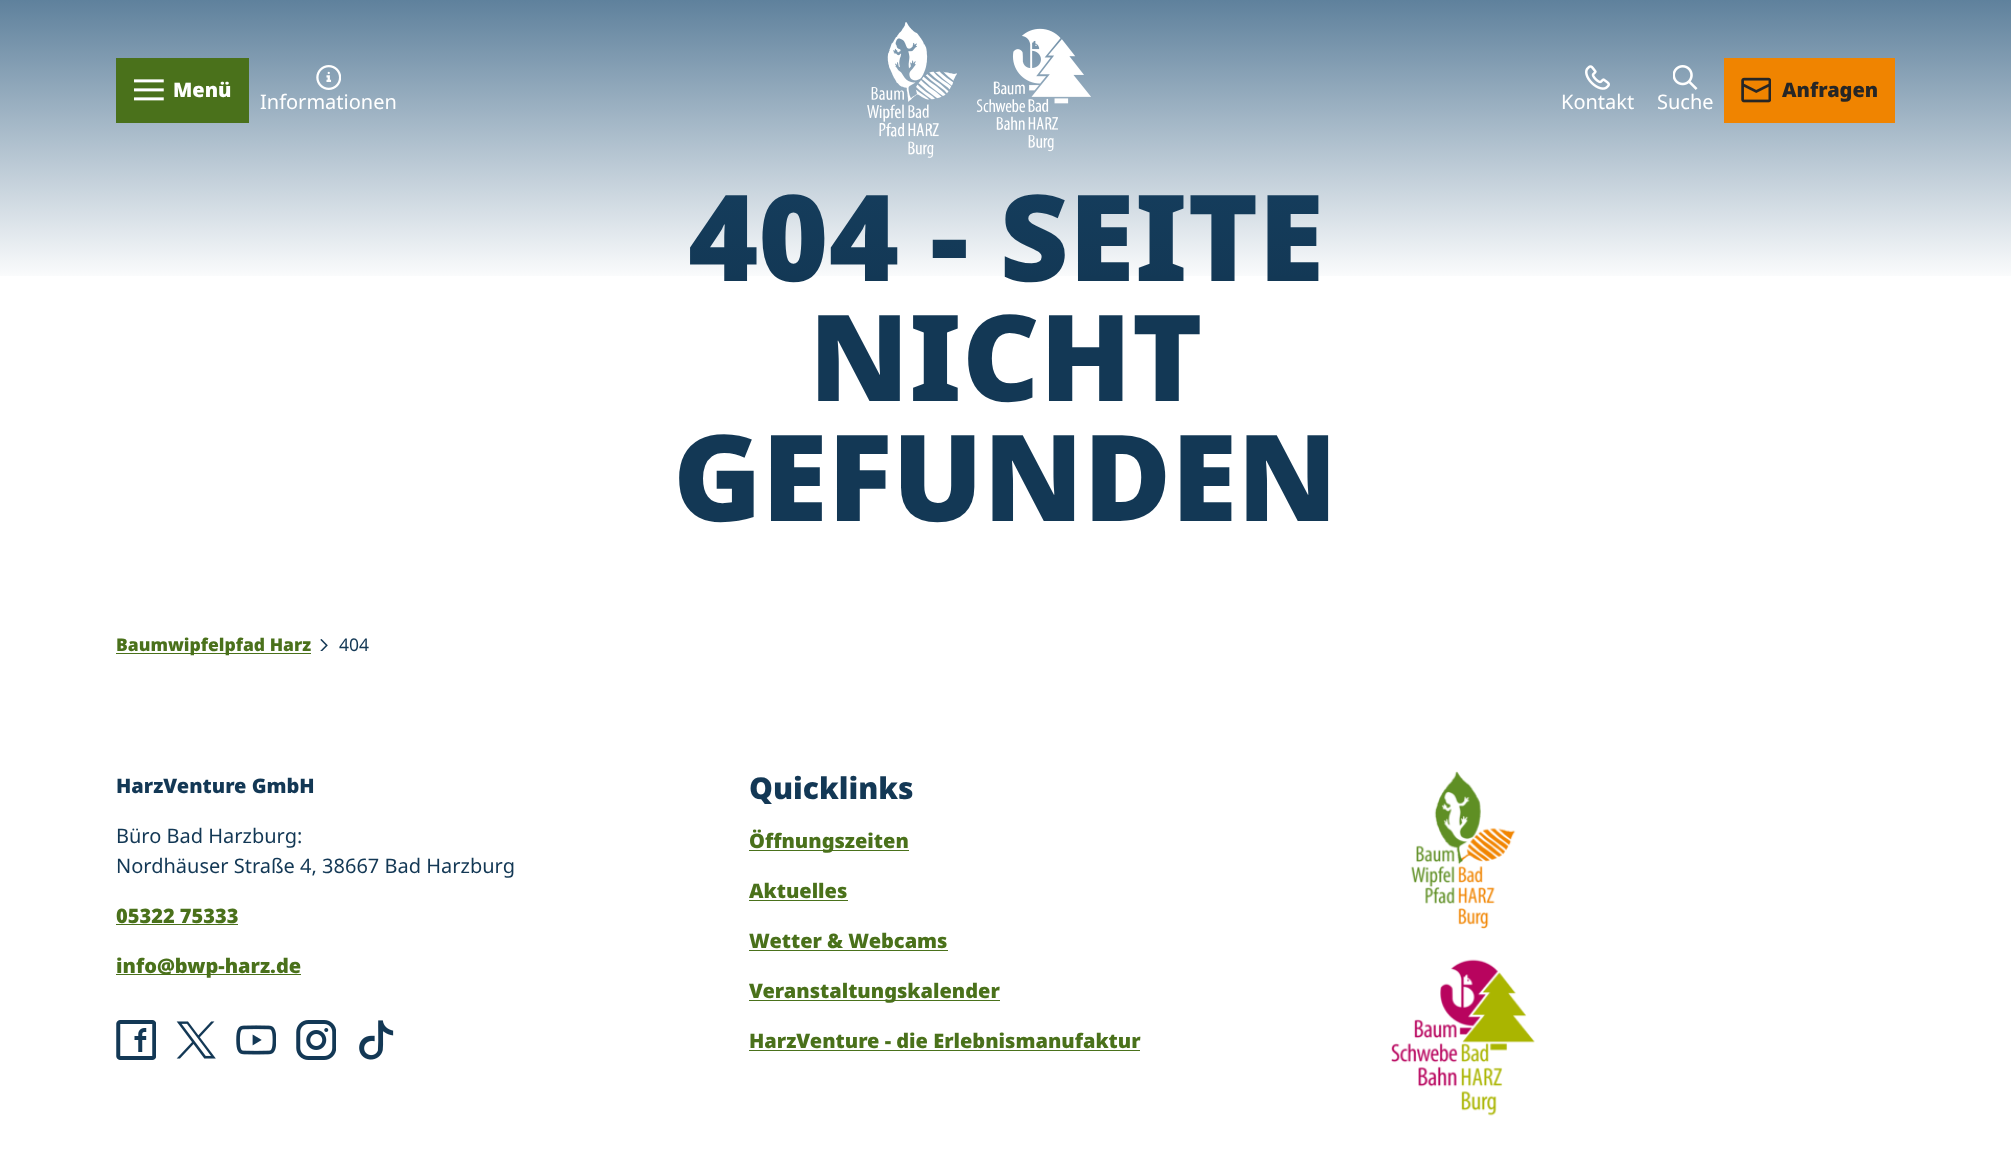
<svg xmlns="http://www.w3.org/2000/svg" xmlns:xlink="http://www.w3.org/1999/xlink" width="2011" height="1174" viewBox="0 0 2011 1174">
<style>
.cls-1{font:900 120px Noto Sans;fill:#133855}
.cls-2{font:900 20px Noto Sans;fill:#262626}
.cls-3{font:20px Noto Sans;fill:#ffffff}
.cls-4{font:900 20px Noto Sans;fill:#ffffff}
.cls-5{font:900 17.5px Noto Sans;fill:#4a711b}
.cls-6{font:17.5px Noto Sans;fill:#133855}
.cls-7{font:900 20px Noto Sans;fill:#133855}
.cls-8{font:20px Noto Sans;fill:#133855}
.cls-9{font:900 20px Noto Sans;fill:#4a711b}
.cls-10{font:900 30px Noto Sans;fill:#133855}
</style>
<defs>
<linearGradient id="g1" gradientUnits="userSpaceOnUse" x1="1006" y1="0" x2="1006" y2="285"><stop offset="0" stop-color="#1a4b72" stop-opacity="0.7"/><stop offset="1" stop-color="#1a4b72" stop-opacity="0"/></linearGradient>
</defs>
<rect width="100%" height="100%" fill="#ffffff"/>
<rect fill="#4a711b" x="116" y="653" width="195" height="1"/>
<image xlink:href="image6.png" x="320" y="639" width="8" height="12"/>
<rect fill="#4a711b" x="116" y="924" width="122" height="1"/>
<rect fill="#4a711b" x="116" y="974" width="185" height="1"/>
<image xlink:href="image7.png" x="116" y="1020" width="40" height="40"/>
<image xlink:href="image8.png" x="176" y="1021" width="40" height="38"/>
<image xlink:href="image9.png" x="236" y="1025" width="40" height="30"/>
<image xlink:href="image10.png" x="296" y="1020" width="40" height="40"/>
<image xlink:href="image11.png" x="359" y="1020" width="35" height="40"/>
<rect fill="#4a711b" x="749" y="850" width="160" height="1"/>
<rect fill="#4a711b" x="749" y="900" width="99" height="1"/>
<rect fill="#4a711b" x="749" y="950" width="199" height="1"/>
<rect fill="#4a711b" x="749" y="1000" width="251" height="1"/>
<rect fill="#4a711b" x="749" y="1050" width="391" height="1"/>
<image xlink:href="image12.png" x="1410" y="771" width="106" height="158"/>
<image xlink:href="image13.png" x="1391" y="959" width="144" height="157"/>
<text class="cls-1" x="688" y="281">404 - SEITE</text>
<rect fill="url(#g1)" x="0" y="0" width="2011" height="276"/>
<rect fill="#f08400" x="1724" y="58" width="171" height="65"/>
<image xlink:href="image5.png" x="1741" y="77" width="30" height="26"/>
<image xlink:href="image4.png" x="1673" y="65" width="25" height="25"/>
<image xlink:href="image3.png" x="1585" y="65" width="25" height="25"/>
<image xlink:href="image2.png" x="867" y="22" width="224" height="136"/>
<image xlink:href="image1.png" x="316" y="65" width="25" height="25"/>
<rect fill="#4a711b" x="116" y="58" width="133" height="65"/>
<image xlink:href="image0.png" x="134" y="79" width="30" height="22"/>
<text class="cls-2" x="1782" y="97">Anfragen</text>
<text class="cls-3" x="1657" y="109">Suche</text>
<text class="cls-3" x="1561" y="109">Kontakt</text>
<text class="cls-3" x="260" y="109">Informationen</text>
<text class="cls-4" x="173" y="97">Menü</text>
<text class="cls-1" x="809" y="401">NICHT</text>
<text class="cls-1" x="673" y="521">GEFUNDEN</text>
<text class="cls-5" x="116" y="651">Baumwipfelpfad Harz</text>
<text class="cls-6" x="339" y="651">404</text>
<text class="cls-7" x="116" y="793">HarzVenture GmbH</text>
<text class="cls-8"><tspan x="116" y="843">Büro Bad Harzburg:</tspan><tspan x="116" y="873">Nordhäuser Straße 4, 38667 Bad Harzburg</tspan></text>
<text class="cls-9" x="116" y="923">05322 75333</text>
<text class="cls-9" x="116" y="973">info@bwp-harz.de</text>
<text class="cls-10" x="749" y="799">Quicklinks</text>
<text class="cls-9" x="749" y="848">Öffnungszeiten</text>
<text class="cls-9" x="749" y="898">Aktuelles</text>
<text class="cls-9" x="749" y="948">Wetter &amp; Webcams</text>
<text class="cls-9" x="749" y="998">Veranstaltungskalender</text>
<text class="cls-9" x="749" y="1048">HarzVenture - die Erlebnismanufaktur</text>
</svg>
